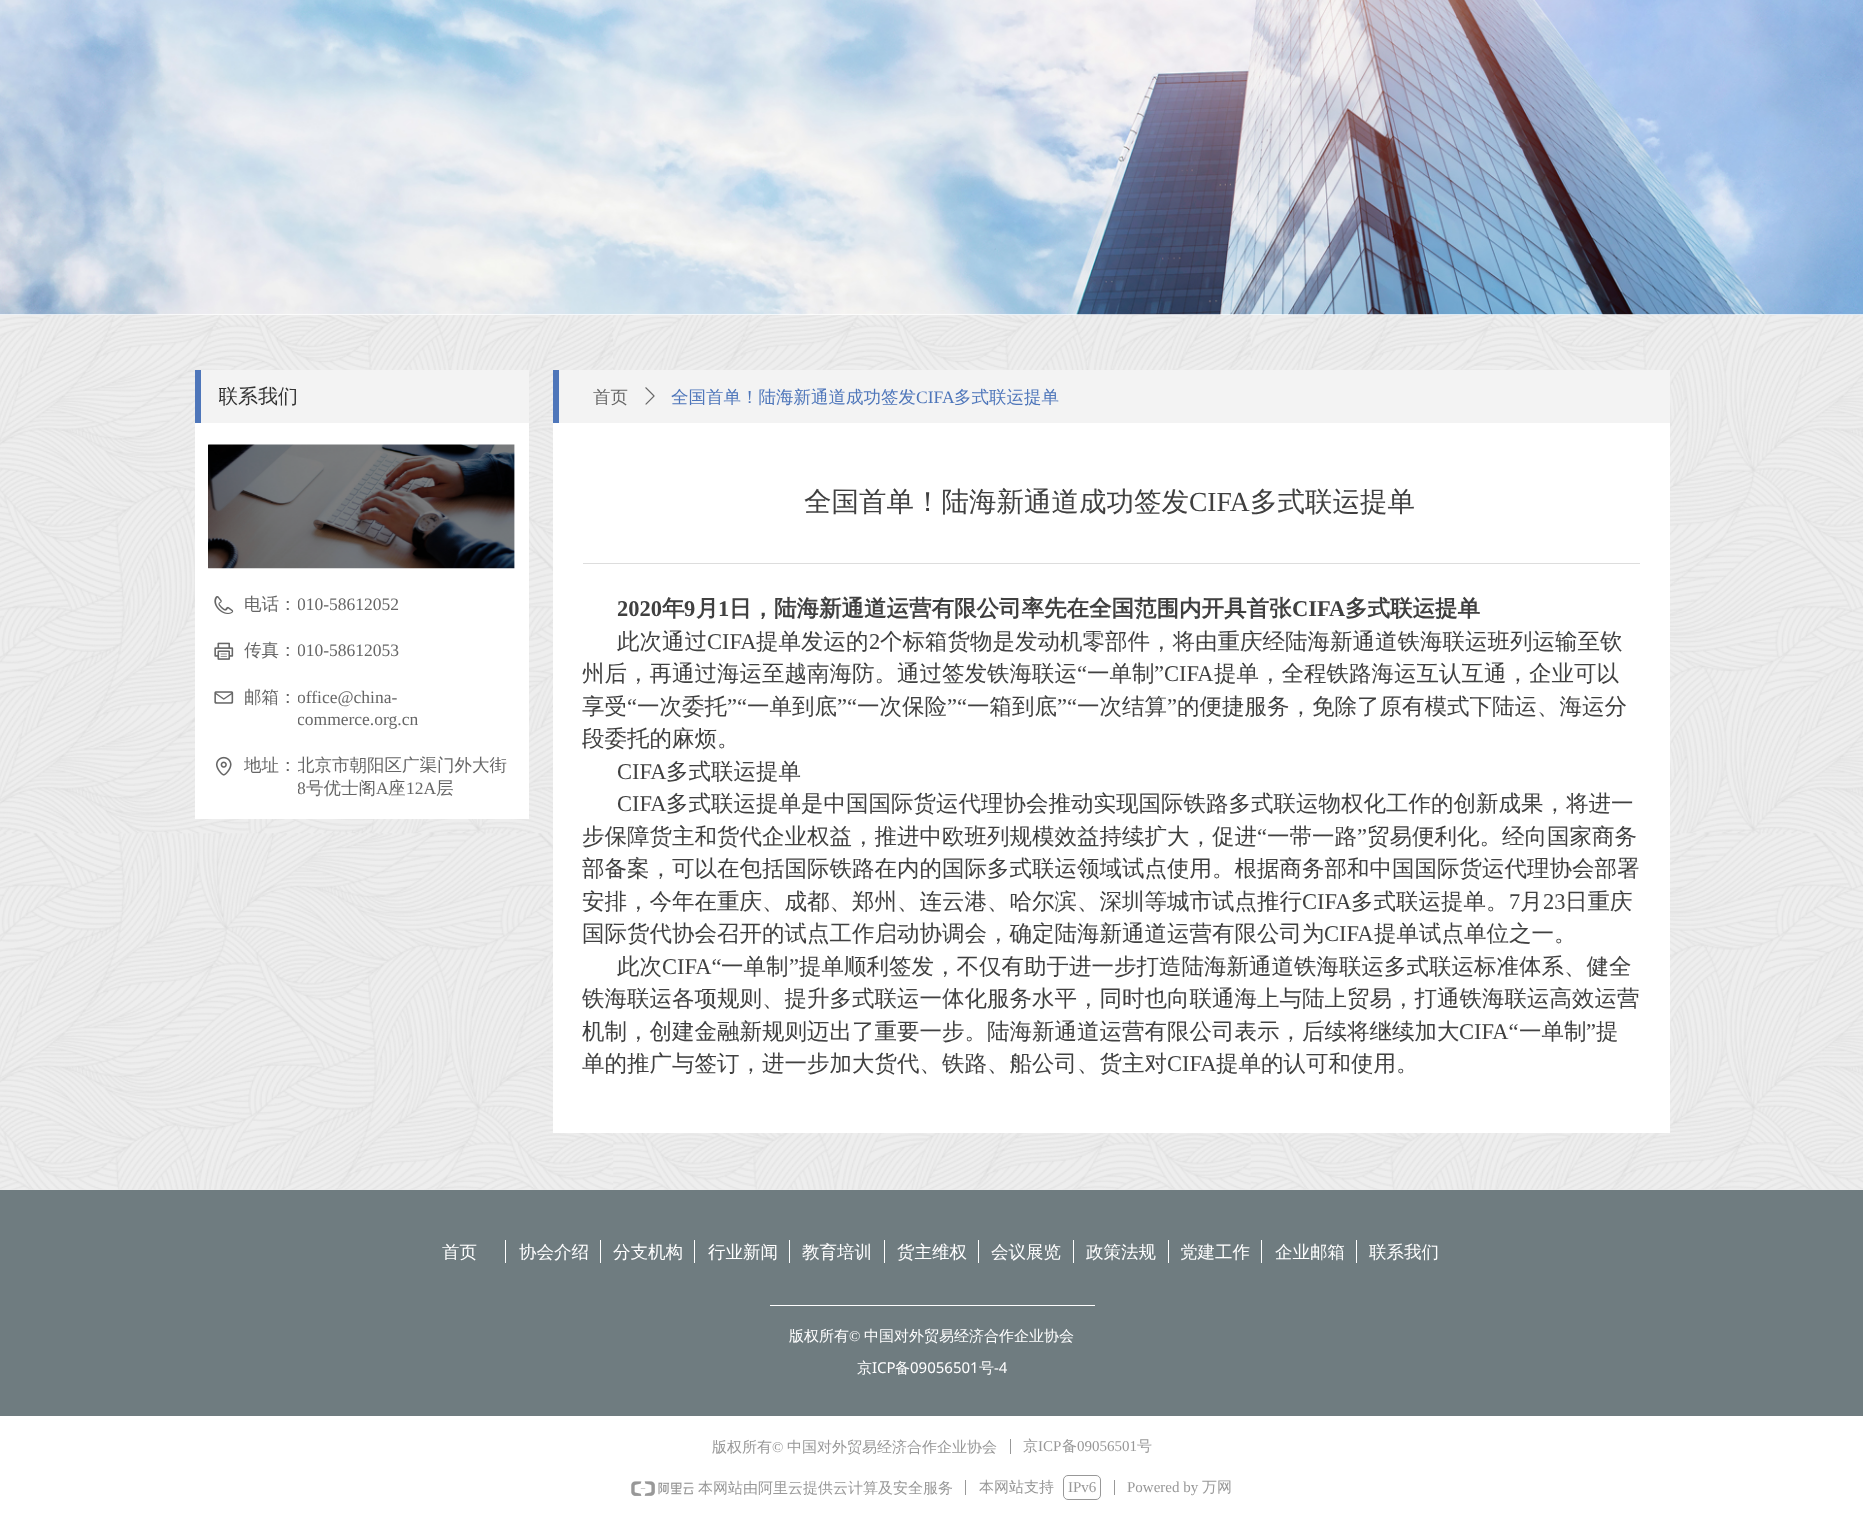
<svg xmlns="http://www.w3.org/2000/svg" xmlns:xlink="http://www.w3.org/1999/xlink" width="1863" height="1516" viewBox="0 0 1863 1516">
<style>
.cls-1{font:500 20px WenQuanYi Zen Hei;fill:#333333}
.cls-2{font:500 17.5px WenQuanYi Zen Hei;fill:#666666}
.cls-3{font:17.5px Liberation Serif;fill:#666666}
.cls-4{font:500 17.5px WenQuanYi Zen Hei;fill:#4e76ba}
.cls-5{font:17.5px Liberation Serif;fill:#4e76ba}
.cls-6{font:500 27.5px WenQuanYi Zen Hei;fill:#404040}
.cls-7{font:27.5px Liberation Serif;fill:#404040}
.cls-8{font:bold 22.5px Liberation Serif;fill:#404040}
.cls-9{font:bold 22.5px WenQuanYi Zen Hei;fill:#404040}
.cls-10{font:500 22.5px WenQuanYi Zen Hei;fill:#404040}
.cls-11{font:22.5px Liberation Serif;fill:#404040}
.cls-12{font:500 17.5px WenQuanYi Zen Hei;fill:#ffffff}
.cls-13{font:500 15px WenQuanYi Zen Hei;fill:#ffffff}
.cls-14{font:15px Liberation Serif;fill:#ffffff}
.cls-15{font:15px Noto Sans;fill:#ffffff}
.cls-16{font:500 15px WenQuanYi Zen Hei;fill:#989898}
.cls-17{font:15px Liberation Serif;fill:#989898}
</style>
<defs>
<clipPath id="clip1"><rect x="219" y="374" width="299" height="44"/></clipPath>
<clipPath id="clip2"><rect x="298" y="594" width="215" height="22"/></clipPath>
<clipPath id="clip3"><rect x="298" y="640" width="215" height="23"/></clipPath>
<clipPath id="clip4"><rect x="298" y="686" width="215" height="45"/></clipPath>
<clipPath id="clip5"><rect x="298" y="755" width="215" height="45"/></clipPath>
</defs>
<rect width="100%" height="100%" fill="#eeeeee"/>
<image xlink:href="image0.png" x="0" y="315" width="1863" height="875"/>
<rect fill="#ffffff" x="0" y="314" width="1863" height="1"/>
<image xlink:href="image1.png" x="0" y="0" width="1863" height="315"/>
<rect fill="#f3f3f3" x="201" y="370" width="328" height="53"/>
<rect fill="#4e76ba" x="195" y="370" width="6" height="53"/>
<rect fill="#ffffff" x="195" y="423" width="334" height="396"/>
<image xlink:href="image2.png" x="208" y="444" width="307" height="125"/>
<image xlink:href="image3.png" x="214" y="596" width="20" height="18"/>
<image xlink:href="image4.png" x="214" y="642" width="20" height="18"/>
<image xlink:href="image5.png" x="214" y="691" width="20" height="13"/>
<image xlink:href="image6.png" x="215" y="756" width="17" height="20"/>
<rect fill="#f3f3f3" x="559" y="370" width="1111" height="53"/>
<rect fill="#4e76ba" x="553" y="370" width="6" height="53"/>
<image xlink:href="image7.png" x="645" y="387" width="10" height="18"/>
<rect fill="#ffffff" x="553" y="423" width="1117" height="710"/>
<rect fill="#dddddd" x="583" y="563" width="1057" height="1"/>
<rect fill="#6f7c80" x="0" y="1190" width="1863" height="226"/>
<rect fill="#ffffff" x="505" y="1240" width="1" height="23"/>
<rect fill="#ffffff" x="600" y="1240" width="1" height="23"/>
<rect fill="#ffffff" x="694" y="1240" width="1" height="23"/>
<rect fill="#ffffff" x="789" y="1240" width="1" height="23"/>
<rect fill="#ffffff" x="884" y="1240" width="1" height="23"/>
<rect fill="#ffffff" x="978" y="1240" width="1" height="23"/>
<rect fill="#ffffff" x="1073" y="1240" width="1" height="23"/>
<rect fill="#ffffff" x="1168" y="1240" width="1" height="23"/>
<rect fill="#ffffff" x="1261" y="1240" width="1" height="23"/>
<rect fill="#ffffff" x="1356" y="1240" width="1" height="23"/>
<rect fill="#ffffff" x="770" y="1305" width="325" height="1"/>
<rect fill="#ffffff" x="0" y="1416" width="1863" height="100"/>
<rect fill="#989898" x="1010" y="1439" width="1" height="15"/>
<image xlink:href="image8.png" x="631" y="1481" width="63" height="15"/>
<rect fill="#989898" x="965" y="1480" width="1" height="15"/>
<rect fill="none" stroke="#989898" x="1063.5" y="1475.5" width="37" height="24" rx="4.5"/>
<rect fill="#989898" x="1114" y="1480" width="1" height="15"/>
<g clip-path="url(#clip1)">
<text class="cls-1" x="218" y="403">联系我们</text>
</g>
<text class="cls-2" x="244" y="610">电话：</text>
<g clip-path="url(#clip2)">
<text class="cls-3" x="297" y="610">010-58612052</text>
</g>
<text class="cls-2" x="244" y="656">传真：</text>
<g clip-path="url(#clip3)">
<text class="cls-3" x="297" y="656">010-58612053</text>
</g>
<text class="cls-2" x="244" y="703">邮箱：</text>
<g clip-path="url(#clip4)">
<text class="cls-3"><tspan x="297" y="703">office@china-</tspan><tspan x="297" y="725">commerce.org.cn</tspan></text>
</g>
<text class="cls-2" x="244" y="771">地址：</text>
<g clip-path="url(#clip5)">
<text class="cls-2" x="297" y="771">北京市朝阳区广渠门外大街</text>
<text class="cls-3" x="297" y="794">8</text>
</g>
<text class="cls-2" x="306" y="794">号优士阁</text>
<text class="cls-3" x="376" y="794">A</text>
<text class="cls-2" x="388" y="794">座</text>
<text class="cls-3" x="406" y="794">12A</text>
<text class="cls-2" x="436" y="794">层</text>
<text class="cls-2" x="593" y="403">首页</text>
<text class="cls-4" x="671" y="403">全国首单！陆海新通道成功签发</text>
<text class="cls-5" x="916" y="403">CIFA</text>
<text class="cls-4" x="954" y="403">多式联运提单</text>
<text class="cls-6" x="804" y="511">全国首单！陆海新通道成功签发</text>
<text class="cls-7" x="1189" y="511">CIFA</text>
<text class="cls-6" x="1250" y="511">多式联运提单</text>
<text class="cls-8" x="617" y="616">2020</text>
<text class="cls-9" x="662" y="616">年</text>
<text class="cls-8" x="684" y="616">9</text>
<text class="cls-9" x="696" y="616">月</text>
<text class="cls-8" x="718" y="616">1</text>
<text class="cls-9" x="729" y="616">日，陆海新通道运营有限公司率先在全国范围内开具首张</text>
<text class="cls-8" x="1292" y="616">CIFA</text>
<text class="cls-9" x="1345" y="616">多式联运提单</text>
<text class="cls-10" x="617" y="649">此次通过</text>
<text class="cls-11" x="707" y="649">CIFA</text>
<text class="cls-10" x="756" y="649">提单发运的</text>
<text class="cls-11" x="869" y="649">2</text>
<text class="cls-10" x="880" y="649">个标箱货物是发动机零部件，将由重庆经陆海新通道铁海联运班列运输至钦</text>
<text class="cls-10" x="582" y="681">州后，再通过海运至越南海防。通过签发铁海联运</text>
<text class="cls-11" x="1077" y="681">“</text>
<text class="cls-10" x="1087" y="681">一单制</text>
<text class="cls-11" x="1154" y="681">”CIFA</text>
<text class="cls-10" x="1214" y="681">提单，全程铁路海运互认互通，企业可以</text>
<text class="cls-10" x="582" y="714">享受</text>
<text class="cls-11" x="627" y="714">“</text>
<text class="cls-10" x="637" y="714">一次委托</text>
<text class="cls-11" x="727" y="714">”“</text>
<text class="cls-10" x="747" y="714">一单到底</text>
<text class="cls-11" x="837" y="714">”“</text>
<text class="cls-10" x="857" y="714">一次保险</text>
<text class="cls-11" x="947" y="714">”“</text>
<text class="cls-10" x="967" y="714">一箱到底</text>
<text class="cls-11" x="1057" y="714">”“</text>
<text class="cls-10" x="1077" y="714">一次结算</text>
<text class="cls-11" x="1167" y="714">”</text>
<text class="cls-10" x="1177" y="714">的便捷服务，免除了原有模式下陆运、海运分</text>
<text class="cls-10" x="582" y="746">段委托的麻烦。</text>
<text class="cls-11" x="617" y="779">CIFA</text>
<text class="cls-10" x="666" y="779">多式联运提单</text>
<text class="cls-11" x="617" y="811">CIFA</text>
<text class="cls-10" x="666" y="811">多式联运提单是中国国际货运代理协会推动实现国际铁路多式联运物权化工作的创新成果，将进一</text>
<text class="cls-10" x="582" y="844">步保障货主和货代企业权益，推进中欧班列规模效益持续扩大，促进</text>
<text class="cls-11" x="1257" y="844">“</text>
<text class="cls-10" x="1267" y="844">一带一路</text>
<text class="cls-11" x="1357" y="844">”</text>
<text class="cls-10" x="1367" y="844">贸易便利化。经向国家商务</text>
<text class="cls-10"><tspan x="582" y="876">部备案，可以在包括国际铁路在内的国际多式联运领域试点使用。根据商务部和中国国际货运代理协会部署</tspan><tspan x="582" y="909">安排，今年在重庆、成都、郑州、连云港、哈尔滨、深圳等城市试点推行</tspan></text>
<text class="cls-11" x="1302" y="909">CIFA</text>
<text class="cls-10" x="1351" y="909">多式联运提单。</text>
<text class="cls-11" x="1509" y="909">7</text>
<text class="cls-10" x="1520" y="909">月</text>
<text class="cls-11" x="1543" y="909">23</text>
<text class="cls-10" x="1565" y="909">日重庆</text>
<text class="cls-10" x="582" y="941">国际货代协会召开的试点工作启动协调会，确定陆海新通道运营有限公司为</text>
<text class="cls-11" x="1324" y="941">CIFA</text>
<text class="cls-10" x="1374" y="941">提单试点单位之一。</text>
<text class="cls-10" x="617" y="974">此次</text>
<text class="cls-11" x="662" y="974">CIFA“</text>
<text class="cls-10" x="721" y="974">一单制</text>
<text class="cls-11" x="789" y="974">”</text>
<text class="cls-10" x="799" y="974">提单顺利签发，不仅有助于进一步打造陆海新通道铁海联运多式联运标准体系、健全</text>
<text class="cls-10"><tspan x="582" y="1006">铁海联运各项规则、提升多式联运一体化服务水平，同时也向联通海上与陆上贸易，打通铁海联运高效运营</tspan><tspan x="582" y="1039">机制，创建金融新规则迈出了重要一步。陆海新通道运营有限公司表示，后续将继续加大</tspan></text>
<text class="cls-11" x="1459" y="1039">CIFA“</text>
<text class="cls-10" x="1519" y="1039">一单制</text>
<text class="cls-11" x="1586" y="1039">”</text>
<text class="cls-10" x="1596" y="1039">提</text>
<text class="cls-10" x="582" y="1071">单的推广与签订，进一步加大货代、铁路、船公司、货主对</text>
<text class="cls-11" x="1167" y="1071">CIFA</text>
<text class="cls-10" x="1216" y="1071">提单的认可和使用。</text>
<text class="cls-12" x="442" y="1258">首页</text>
<text class="cls-12" x="519" y="1258">协会介绍</text>
<text class="cls-12" x="613" y="1258">分支机构</text>
<text class="cls-12" x="708" y="1258">行业新闻</text>
<text class="cls-12" x="802" y="1258">教育培训</text>
<text class="cls-12" x="897" y="1258">货主维权</text>
<text class="cls-12" x="991" y="1258">会议展览</text>
<text class="cls-12" x="1086" y="1258">政策法规</text>
<text class="cls-12" x="1180" y="1258">党建工作</text>
<text class="cls-12" x="1275" y="1258">企业邮箱</text>
<text class="cls-12" x="1369" y="1258">联系我们</text>
<text class="cls-13" x="789" y="1341">版权所有</text>
<text class="cls-14" x="849" y="1341">©</text>
<text class="cls-13" x="864" y="1341">中国对外贸易经济合作企业协会</text>
<text class="cls-13" x="857" y="1373">京</text>
<text class="cls-15" x="872" y="1373">ICP</text>
<text class="cls-13" x="895" y="1373">备</text>
<text class="cls-15" x="910" y="1373">09056501</text>
<text class="cls-13" x="979" y="1373">号</text>
<text class="cls-15" x="994" y="1373">-4</text>
<text class="cls-16" x="712" y="1452">版权所有</text>
<text class="cls-17" x="772" y="1452">©</text>
<text class="cls-16" x="787" y="1452">中国对外贸易经济合作企业协会</text>
<text class="cls-16" x="1023" y="1451">京</text>
<text class="cls-17" x="1038" y="1451">ICP</text>
<text class="cls-16" x="1062" y="1451">备</text>
<text class="cls-17" x="1077" y="1451">09056501</text>
<text class="cls-16" x="1137" y="1451">号</text>
<text class="cls-16" x="698" y="1493">本网站由阿里云提供云计算及安全服务</text>
<text class="cls-16" x="979" y="1492">本网站支持</text>
<text class="cls-17" x="1068" y="1492">IPv6</text>
<text class="cls-17" x="1127" y="1492">Powered by</text>
<text class="cls-16" x="1202" y="1492">万网</text>
</svg>
